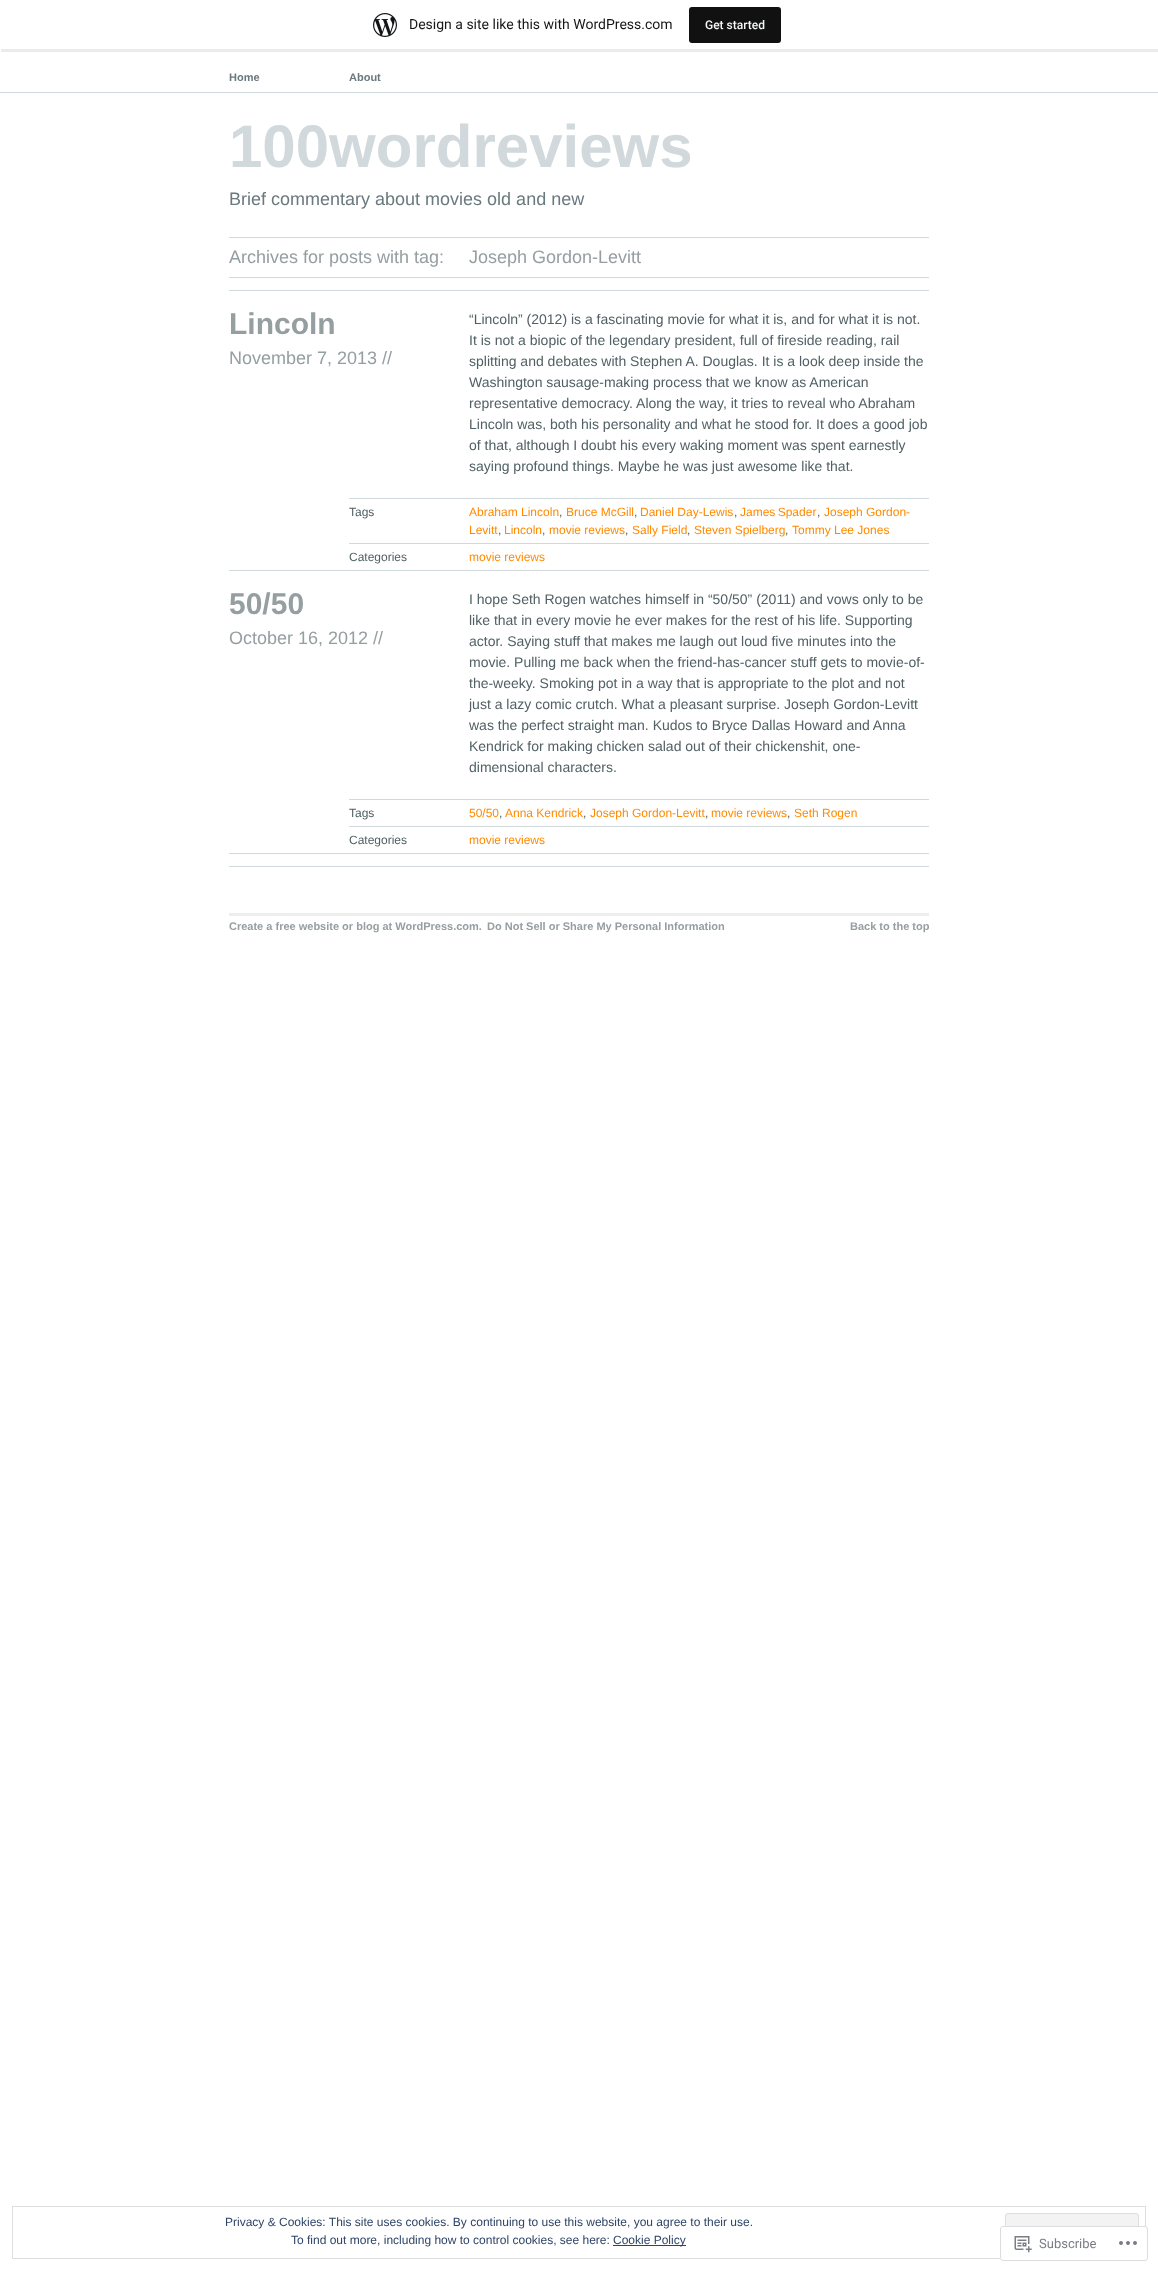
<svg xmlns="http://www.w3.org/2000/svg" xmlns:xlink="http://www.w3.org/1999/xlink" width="1158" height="2271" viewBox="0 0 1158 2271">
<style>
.cls-1{font:14px Roboto;fill:#171717}
.cls-2{font:500 12px Roboto;fill:#f6f7f7}
.cls-3{font:bold 11px Liberation Sans;fill:#6a797d}
.cls-4{font:bold 60px Liberation Sans;fill:#d1d9dc}
.cls-5{font:18px Liberation Sans;fill:#6a797d}
.cls-6{font:18px Liberation Sans;fill:#959ea1}
.cls-7{font:bold 30px Liberation Sans;fill:#959ea1}
.cls-8{font:14px Liberation Sans;fill:#516064}
.cls-9{font:12px Liberation Sans;fill:#516064}
.cls-10{font:12px Liberation Sans;fill:#ff8a00}
.cls-11{font:bold 11px Liberation Sans;fill:#959ea1}
.cls-12{font:12px Liberation Sans;fill:#2e4467}
.cls-13{font:13px Roboto;fill:#7a7e84}
</style>
<rect width="100%" height="100%" fill="#ffffff"/>
<path fill="#000000" fill-opacity="0.08" d="M1 49V52H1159V3H1158V49Z"/>
<image xlink:href="image0.png" x="373" y="13" width="24" height="24"/>
<rect fill="#111111" x="689" y="7" width="92" height="36" rx="3"/>
<rect fill="#d1d9dc" x="0" y="92" width="1158" height="1"/>
<rect fill="#d1d9dc" x="229" y="237" width="700" height="1"/>
<rect fill="#d1d9dc" x="229" y="277" width="700" height="1"/>
<rect fill="#d1d9dc" x="229" y="290" width="700" height="1"/>
<rect fill="#d1d9dc" x="349" y="498" width="580" height="1"/>
<rect fill="#d1d9dc" x="349" y="543" width="580" height="1"/>
<rect fill="#d1d9dc" x="229" y="570" width="700" height="1"/>
<rect fill="#d1d9dc" x="349" y="799" width="580" height="1"/>
<rect fill="#d1d9dc" x="349" y="826" width="580" height="1"/>
<rect fill="#d1d9dc" x="229" y="853" width="700" height="1"/>
<rect fill="#d1d9dc" x="229" y="866" width="700" height="1"/>
<rect fill="#eeeeee" x="229" y="913" width="700" height="3"/>
<rect fill="none" stroke="#dedede" x="12.5" y="2206.5" width="1133" height="52"/>
<rect fill="#f3f3f3" stroke="#dedede" x="1005.5" y="2213.5" width="133" height="38" rx="2.5"/>
<rect fill="#2e4467" x="613" y="2245" width="73" height="1"/>
<rect fill="#ffffff" fill-opacity="0.98" x="1000" y="2226" width="148" height="35" rx="3"/>
<rect fill="none" stroke="#dcdcde" stroke-opacity="0.98" x="1000.5" y="2226.5" width="147" height="34" rx="2.5"/>
<image xlink:href="image1.png" x="1014" y="2236" width="18" height="17"/>
<image xlink:href="image2.png" x="1119" y="2241" width="18" height="4"/>
<text class="cls-1" x="409" y="29">Design a site like this with WordPress.com</text>
<text class="cls-2" x="705" y="29">Get started</text>
<text class="cls-3" x="229" y="81">Home</text>
<text class="cls-3" x="349" y="81">About</text>
<text class="cls-4" x="229" y="167">100wordreviews</text>
<text class="cls-5" x="229" y="205">Brief commentary about movies old and new</text>
<text class="cls-6" x="229" y="263">Archives for posts with tag:</text>
<text class="cls-6" x="469" y="263">Joseph Gordon-Levitt</text>
<text class="cls-7" x="229" y="334">Lincoln</text>
<text class="cls-6" x="229" y="364">November 7, 2013 //</text>
<text class="cls-8"><tspan x="469" y="324">“Lincoln” (2012) is a fascinating movie for what it is, and for what it is not.</tspan><tspan x="469" y="345">It is not a biopic of the legendary president, full of fireside reading, rail</tspan><tspan x="469" y="366">splitting and debates with Stephen A. Douglas. It is a look deep inside the</tspan><tspan x="469" y="387">Washington sausage-making process that we know as American</tspan><tspan x="469" y="408">representative democracy. Along the way, it tries to reveal who Abraham</tspan><tspan x="469" y="429">Lincoln was, both his personality and what he stood for. It does a good job</tspan><tspan x="469" y="450">of that, although I doubt his every waking moment was spent earnestly</tspan><tspan x="469" y="471">saying profound things. Maybe he was just awesome like that.</tspan></text>
<text class="cls-9" x="349" y="516">Tags</text>
<text class="cls-10" x="469" y="516">Abraham Lincoln</text>
<text class="cls-9" x="559" y="516">,</text>
<text class="cls-10" x="566" y="516">Bruce McGill</text>
<text class="cls-9" x="634" y="516">,</text>
<text class="cls-10" x="640" y="516">Daniel Day-Lewis</text>
<text class="cls-9" x="734" y="516">,</text>
<text class="cls-10" x="740" y="516" word-spacing="-1">James Spader</text>
<text class="cls-9" x="817" y="516">,</text>
<text class="cls-10" x="824" y="516">Joseph Gordon-</text>
<text class="cls-10" x="469" y="534">Levitt</text>
<text class="cls-9" x="498" y="534">,</text>
<text class="cls-10" x="504" y="534">Lincoln</text>
<text class="cls-9" x="542" y="534">,</text>
<text class="cls-10" x="549" y="534">movie reviews</text>
<text class="cls-9" x="625" y="534">,</text>
<text class="cls-10" x="632" y="534">Sally Field</text>
<text class="cls-9" x="687" y="534">,</text>
<text class="cls-10" x="694" y="534">Steven Spielberg</text>
<text class="cls-9" x="785" y="534">,</text>
<text class="cls-10" x="792" y="534">Tommy Lee Jones</text>
<text class="cls-9" x="349" y="561">Categories</text>
<text class="cls-10" x="469" y="561">movie reviews</text>
<text class="cls-7" x="229" y="614">50/50</text>
<text class="cls-6" x="229" y="644">October 16, 2012 //</text>
<text class="cls-8"><tspan x="469" y="604">I hope Seth Rogen watches himself in “50/50” (2011) and vows only to be</tspan><tspan x="469" y="625">like that in every movie he ever makes for the rest of his life. Supporting</tspan><tspan x="469" y="646">actor. Saying stuff that makes me laugh out loud five minutes into the</tspan><tspan x="469" y="667">movie. Pulling me back when the friend-has-cancer stuff gets to movie-of-</tspan><tspan x="469" y="688">the-weeky. Smoking pot in a way that is appropriate to the plot and not</tspan><tspan x="469" y="709">just a lazy comic crutch. What a pleasant surprise. Joseph Gordon-Levitt</tspan><tspan x="469" y="730">was the perfect straight man. Kudos to Bryce Dallas Howard and Anna</tspan><tspan x="469" y="751">Kendrick for making chicken salad out of their chickenshit, one-</tspan><tspan x="469" y="772">dimensional characters.</tspan></text>
<text class="cls-9" x="349" y="817">Tags</text>
<text class="cls-10" x="469" y="817">50/50</text>
<text class="cls-9" x="499" y="817">,</text>
<text class="cls-10" x="505" y="817">Anna Kendrick</text>
<text class="cls-9" x="583" y="817">,</text>
<text class="cls-10" x="590" y="817">Joseph Gordon-Levitt</text>
<text class="cls-9" x="705" y="817">,</text>
<text class="cls-10" x="711" y="817">movie reviews</text>
<text class="cls-9" x="787" y="817">,</text>
<text class="cls-10" x="794" y="817">Seth Rogen</text>
<text class="cls-9" x="349" y="844">Categories</text>
<text class="cls-10" x="469" y="844">movie reviews</text>
<text class="cls-11" x="229" y="930">Create a free website or blog at WordPress.com.</text>
<text class="cls-11" x="487" y="930">Do Not Sell or Share My Personal Information</text>
<text class="cls-11" x="850" y="930">Back to the top</text>
<text class="cls-12" x="225" y="2226">Privacy &amp; Cookies: This site uses cookies. By continuing to use this website, you agree to their use.</text>
<text class="cls-12" x="291" y="2244">To find out more, including how to control cookies, see here:</text>
<text class="cls-12" x="613" y="2244">Cookie Policy</text>
<text class="cls-13" x="1039" y="2248">Subscribe</text>
</svg>
